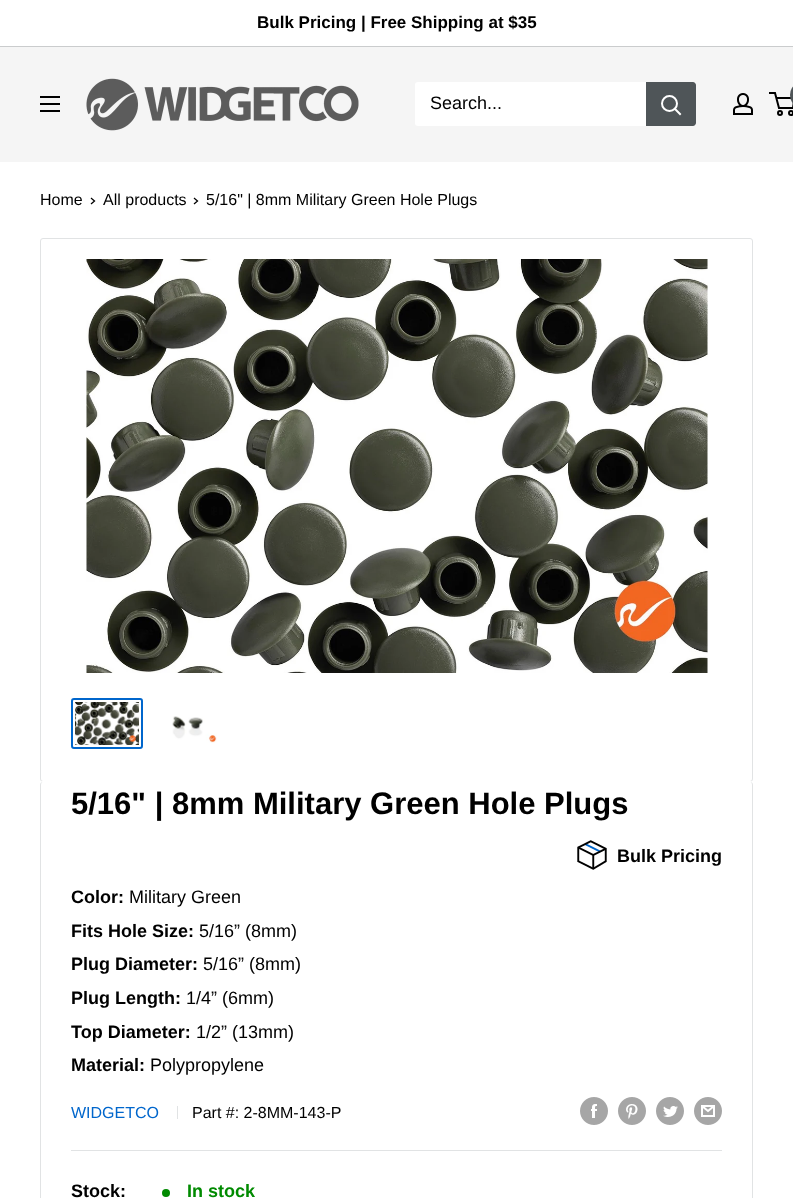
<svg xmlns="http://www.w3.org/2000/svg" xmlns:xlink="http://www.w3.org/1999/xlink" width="793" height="1198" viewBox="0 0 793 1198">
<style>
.cls-1{font:bold 17px Liberation Sans;fill:#000000}
.cls-2{font:18px Liberation Sans;fill:#000000}
.cls-3{font:16px Liberation Sans;fill:#000000}
.cls-4{font:bold 31px Liberation Sans;fill:#000000}
.cls-5{font:bold 18px Liberation Sans;fill:#000000}
.cls-6{font:16px Liberation Sans;fill:#0066cc}
.cls-7{font:bold 18px Liberation Sans;fill:#008a00}
</style>
<rect width="100%" height="100%" fill="#ffffff"/>
<rect fill="#cacccd" x="0" y="46" width="793" height="1"/>
<rect fill="#f5f5f5" x="0" y="47" width="793" height="115"/>
<image xlink:href="image0.png" x="40" y="96" width="20" height="16"/>
<image xlink:href="image1.png" x="86" y="78" width="273" height="53"/>
<rect fill="#ffffff" x="415" y="82" width="281" height="44" rx="3"/>
<path fill="#4f5558" d="M646 82H693C694.5 82 696 83.5 696 85V123C696 124.5 694.5 126 693 126H646Z"/>
<path fill="none" stroke="#ffffff" stroke-width="2" stroke-linecap="square" d="M680 114L675 109"/>
<circle fill="none" stroke="#ffffff" stroke-width="2" cx="669.5" cy="103.5" r="7.5"/>
<image xlink:href="image2.png" x="733" y="93" width="20" height="22"/>
<circle fill="none" stroke="#000000" stroke-width="2" cx="780" cy="113" r="2"/>
<circle fill="none" stroke="#000000" stroke-width="2" cx="791" cy="113" r="2"/>
<path fill="none" stroke="#000000" stroke-width="2" d="M776.5 98H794.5L793 108H779L775 93H769"/>
<rect fill="#4f5558" x="790" y="85" width="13" height="20" rx="10"/>
<path fill="none" stroke="#000000" stroke-width="1.3" stroke-linecap="square" d="M91.5 198.5L94.5 201L91.5 203.5"/>
<path fill="none" stroke="#000000" stroke-width="1.3" stroke-linecap="square" d="M194.5 198.5L197.5 201L194.5 203.5"/>
<rect fill="none" stroke="#e1e3e4" x="40.5" y="238.5" width="712" height="543" rx="2.5"/>
<image xlink:href="image3.png" x="86" y="259" width="622" height="414"/>
<rect fill="none" stroke="#0066cc" stroke-width="2" x="72" y="699" width="70" height="49" rx="2"/>
<image xlink:href="image4.png" x="75" y="702" width="64" height="43"/>
<image xlink:href="image5.png" x="172" y="716" width="45" height="27"/>
<path fill="#ffffff" d="M43 781C41 781 40 783 40 785C40 783 41 782 43 782H750C752 782 753 783 753 785C753 783 752 781 750 781Z"/>
<path fill="#e1e3e4" fill-rule="evenodd" d="M43 782H750C752 782 753 783 753 785V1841C753 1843 752 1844 750 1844H43C41 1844 40 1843 40 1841V785C40 783 41 782 43 782ZM43 782H750C751 782 752 783 752 785V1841C752 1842 751 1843 750 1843H43C42 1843 41 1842 41 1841V785C41 783 42 782 43 782Z"/>
<image xlink:href="image6.png" x="577" y="840" width="30" height="30"/>
<rect fill="#e1e3e4" x="177" y="1106" width="1" height="13"/>
<image xlink:href="image7.png" x="580" y="1097" width="28" height="28"/>
<image xlink:href="image8.png" x="618" y="1097" width="28" height="28"/>
<image xlink:href="image9.png" x="656" y="1097" width="28" height="28"/>
<image xlink:href="image10.png" x="694" y="1097" width="28" height="28"/>
<rect fill="#e1e3e4" x="71" y="1150" width="651" height="1"/>
<circle fill="#008a00" cx="166" cy="1193" r="4"/>
<text class="cls-1" x="257" y="28">Bulk Pricing | Free Shipping at $35</text>
<text class="cls-2" x="430" y="109">Search...</text>
<text class="cls-3" x="40" y="205">Home</text>
<text class="cls-3" x="103" y="205">All products</text>
<text class="cls-3" x="206" y="205">5/16" | 8mm Military Green Hole Plugs</text>
<text class="cls-4" x="71" y="814">5/16" | 8mm Military Green Hole Plugs</text>
<text class="cls-5" x="617" y="862">Bulk Pricing</text>
<text class="cls-5" x="71" y="903">Color:</text>
<text class="cls-2" x="129" y="903">Military Green</text>
<text class="cls-5" x="71" y="937">Fits Hole Size:</text>
<text class="cls-2" x="199" y="937">5/16” (8mm)</text>
<text class="cls-5" x="71" y="970">Plug Diameter:</text>
<text class="cls-2" x="203" y="970">5/16” (8mm)</text>
<text class="cls-5" x="71" y="1004">Plug Length:</text>
<text class="cls-2" x="186" y="1004">1/4” (6mm)</text>
<text class="cls-5" x="71" y="1038">Top Diameter:</text>
<text class="cls-2" x="196" y="1038">1/2” (13mm)</text>
<text class="cls-5" x="71" y="1071">Material:</text>
<text class="cls-2" x="150" y="1071">Polypropylene</text>
<text class="cls-6" x="71" y="1118">WIDGETCO</text>
<text class="cls-3" x="192" y="1118">Part #: 2-8MM-143-P</text>
<text class="cls-5" x="71" y="1197">Stock:</text>
<text class="cls-7" x="187" y="1197">In stock</text>
</svg>
